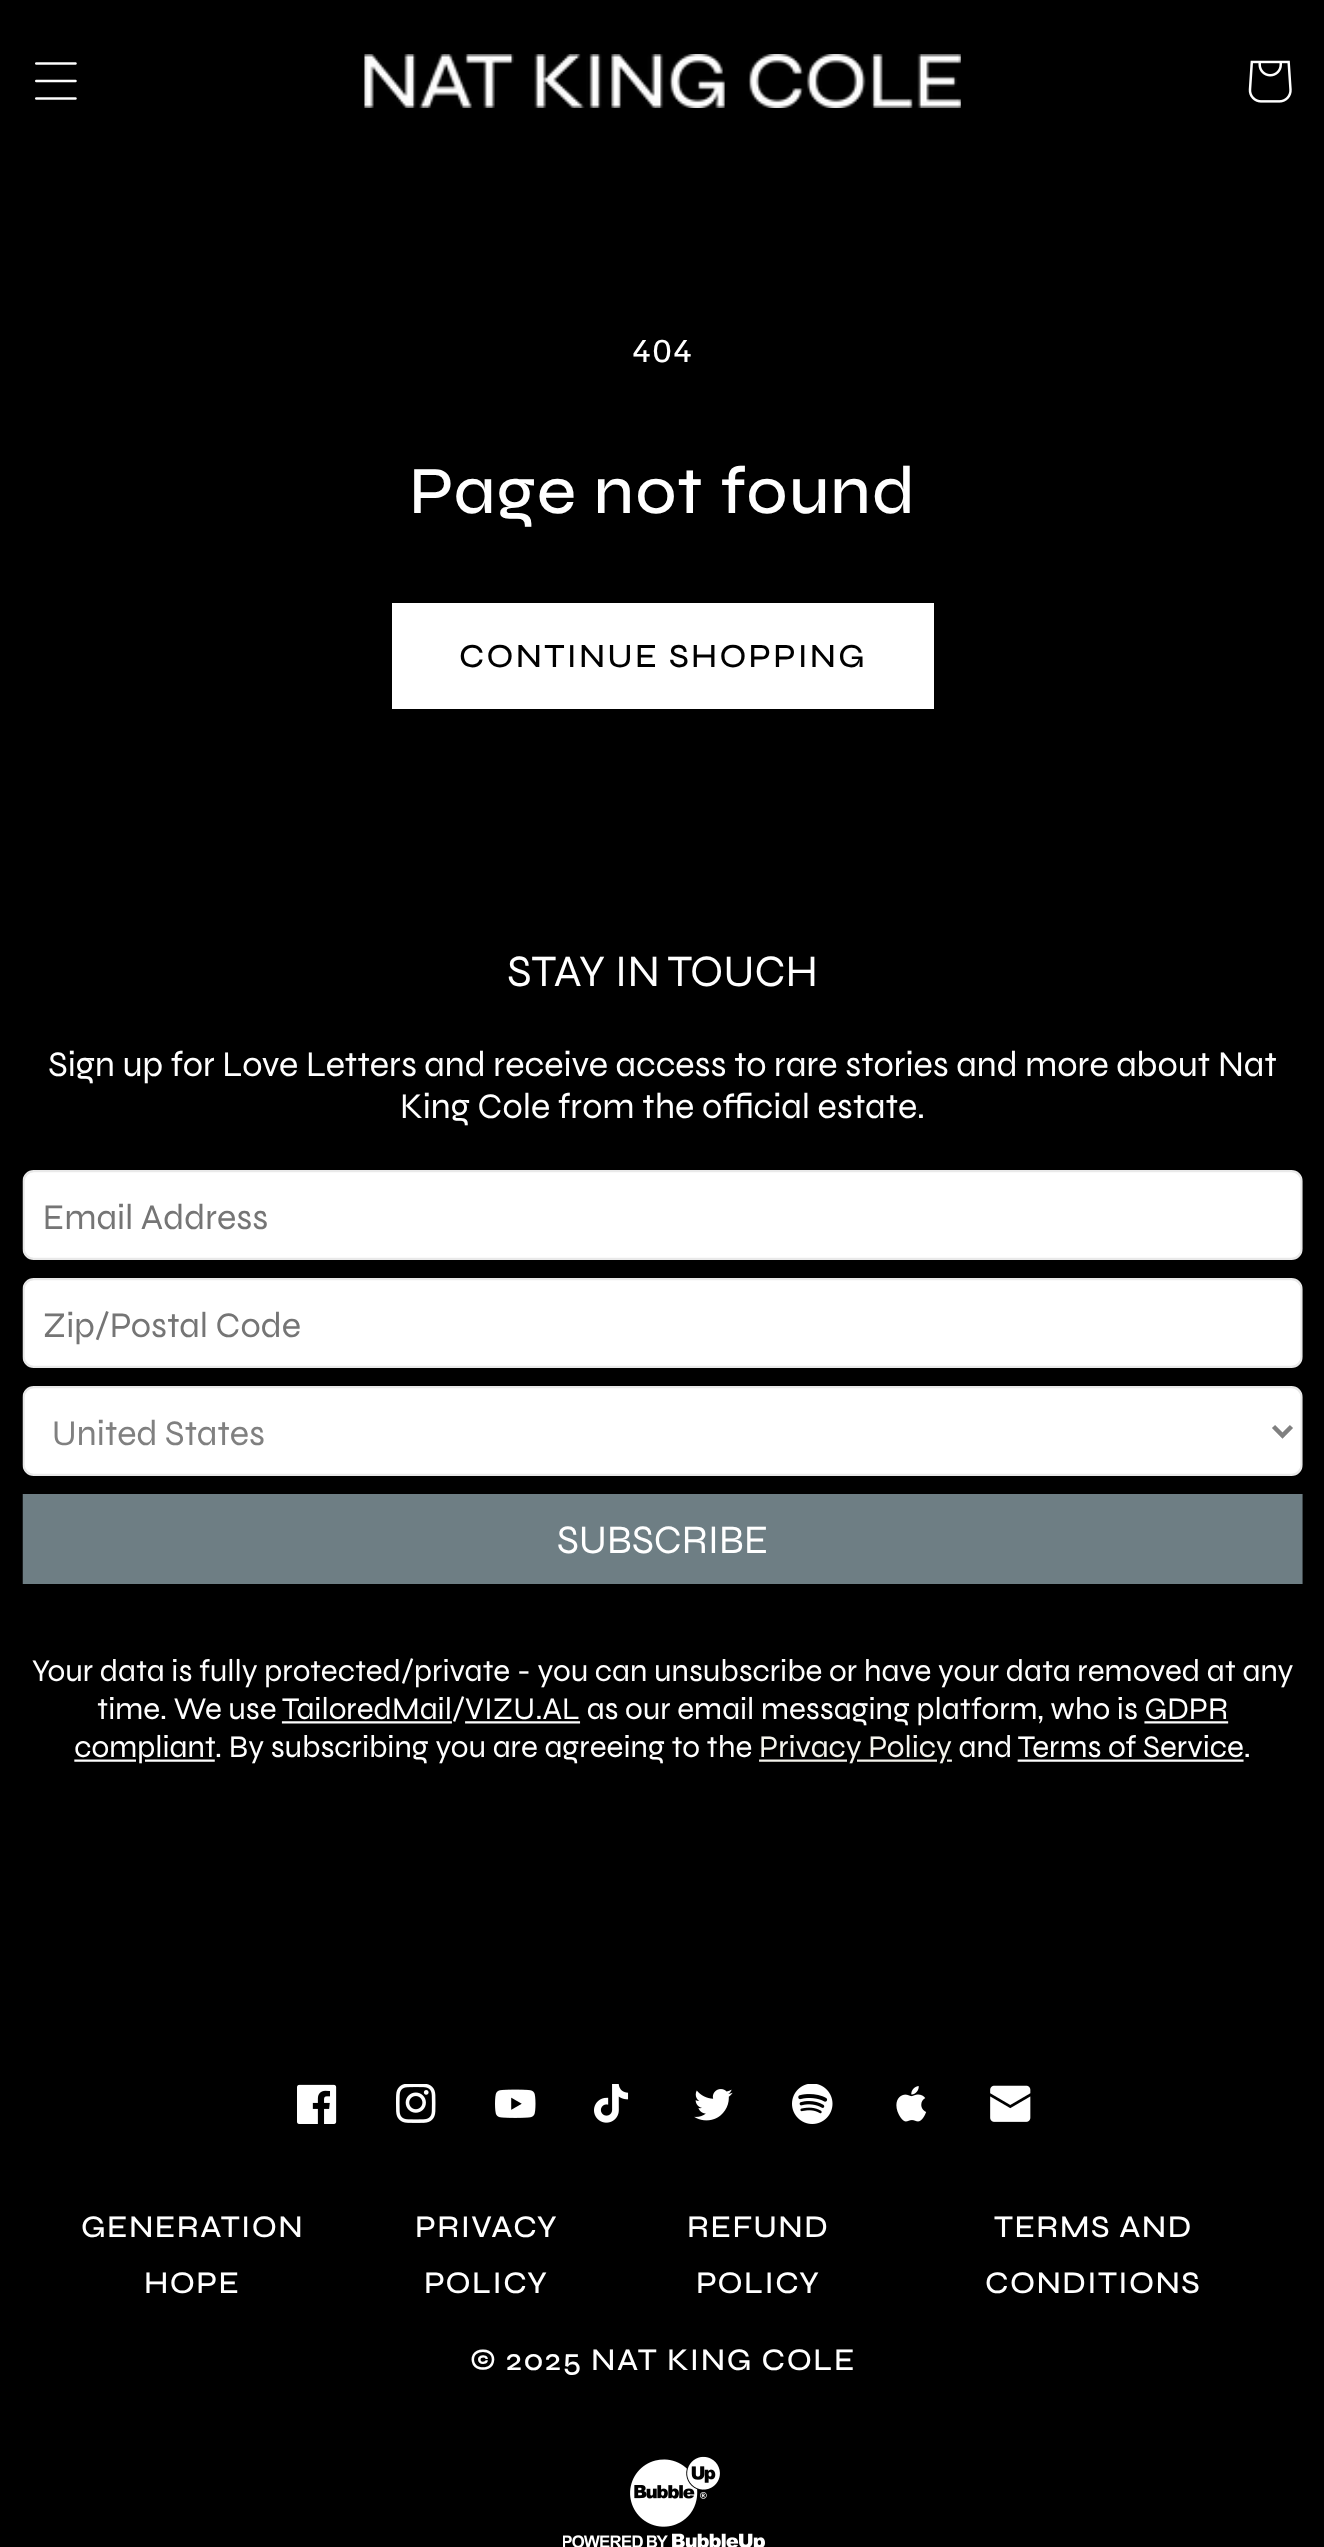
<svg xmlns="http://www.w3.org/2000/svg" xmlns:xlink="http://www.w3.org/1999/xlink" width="1324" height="2547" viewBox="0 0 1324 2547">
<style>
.cls-1{font:33.75px Familjen Grotesk;letter-spacing:1.4px;fill:#ffffff}
.cls-2{font:500 67.5px Syne;letter-spacing:1.4px;fill:#ffffff}
.cls-3{font:500 33.75px Syne;letter-spacing:2.25px;fill:#000000}
.cls-4{font:500 31.5px Syne;letter-spacing:1.4px;fill:#ffffff}
.cls-5{font:500 31.5px Syne;letter-spacing:1.6px;fill:#ffffff}
</style>
<rect width="100%" height="100%" fill="#000000"/>
<image xlink:href="image0.png" x="35" y="62" width="42" height="38"/>
<image xlink:href="image1.png" x="364" y="54" width="597" height="54"/>
<image xlink:href="image2.png" x="1248" y="60" width="44" height="43"/>
<rect fill="#ffffff" x="392" y="603" width="542" height="106"/>
<image xlink:href="image3.png" x="22" y="956" width="1281" height="808"/>
<image xlink:href="image4.png" x="297" y="2084" width="40" height="40"/>
<image xlink:href="image5.png" x="396" y="2084" width="40" height="39"/>
<image xlink:href="image6.png" x="495" y="2089" width="41" height="29"/>
<image xlink:href="image7.png" x="594" y="2084" width="35" height="39"/>
<image xlink:href="image8.png" x="694" y="2089" width="39" height="32"/>
<image xlink:href="image9.png" x="792" y="2084" width="41" height="40"/>
<image xlink:href="image10.png" x="896" y="2086" width="31" height="36"/>
<image xlink:href="image11.png" x="990" y="2085" width="41" height="37"/>
<image xlink:href="image12.png" x="563" y="2456" width="202" height="91"/>
<text class="cls-1" x="632" y="362">404</text>
<text class="cls-2" x="409" y="513">Page not found</text>
<text class="cls-3" x="459" y="667">CONTINUE SHOPPING</text>
<text class="cls-4" x="81" y="2237">GENERATION</text>
<text class="cls-4" x="144" y="2293">HOPE</text>
<text class="cls-4" x="415" y="2237">PRIVACY</text>
<text class="cls-4" x="424" y="2293">POLICY</text>
<text class="cls-4" x="687" y="2237">REFUND</text>
<text class="cls-4" x="696" y="2293">POLICY</text>
<text class="cls-4" x="994" y="2237">TERMS AND</text>
<text class="cls-4" x="985" y="2293">CONDITIONS</text>
<text class="cls-5" x="470" y="2370">© 2025 NAT KING COLE</text>
</svg>
